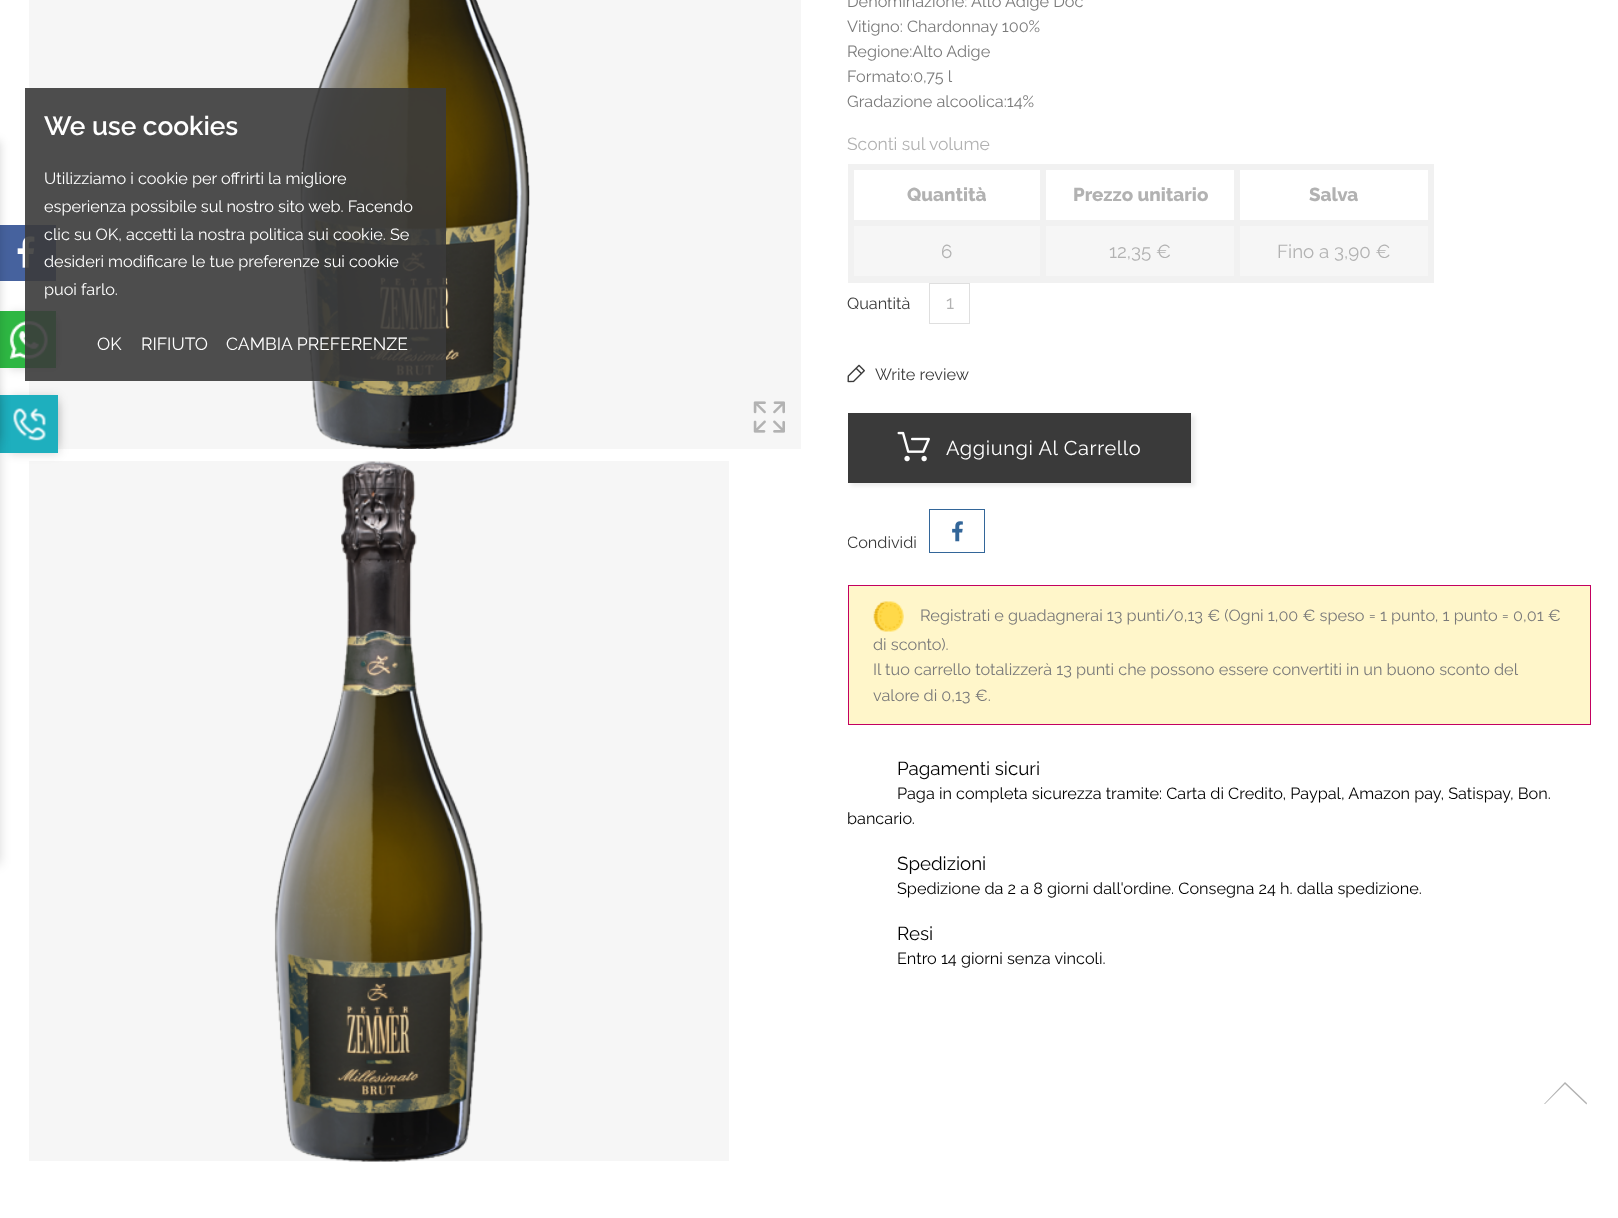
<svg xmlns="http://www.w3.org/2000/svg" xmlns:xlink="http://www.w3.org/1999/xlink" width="1618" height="1218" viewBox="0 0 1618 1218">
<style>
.cls-1{font:600 26.25px Raleway;fill:#ffffff}
.cls-2{font:16.25px Raleway;fill:#ffffff}
.cls-3{font:17.5px Raleway;fill:#ffffff}
.cls-4{font:16.25px Raleway;fill:#7a7a7a}
.cls-5{font:17.5px Raleway;fill:#b2b2b2}
.cls-6{font:800 18.75px Raleway;fill:#b2b2b2}
.cls-7{font:18.75px Raleway;fill:#b2b2b2}
.cls-8{font:16.25px Raleway;fill:#3a3a3a}
.cls-9{font:20px Raleway;letter-spacing:0.6px;fill:#ffffff}
.cls-10{font:18.75px Raleway;fill:#000000}
.cls-11{font:16.25px Raleway;fill:#000000}
</style>
<defs>
<clipPath id="clip1"><rect x="848" y="509" width="743" height="64"/></clipPath>
</defs>
<rect width="100%" height="100%" fill="#ffffff"/>
<rect fill="#f6f6f6" x="29" y="0" width="772" height="449"/>
<image xlink:href="image0.png" x="300" y="0" width="230" height="449"/>
<rect fill="#46629e" x="0" y="225" width="56" height="56"/>
<image xlink:href="image7.png" x="17" y="236" width="18" height="32"/>
<rect fill="#000000" fill-opacity="0.15" filter="blur(5px)" x="9" y="320" width="49" height="49"/>
<rect fill="#000000" fill-opacity="0.15" filter="blur(5px)" x="10" y="313" width="46" height="46"/>
<rect fill="#2eb743" x="0" y="311" width="56" height="57"/>
<image xlink:href="image8.png" x="9" y="321" width="39" height="38"/>
<rect fill="#000000" fill-opacity="0.15" filter="blur(5px)" x="10" y="396" width="48" height="48"/>
<rect fill="#3b3b3b" fill-opacity="0.9" x="25" y="88" width="421" height="293"/>
<rect fill="#f6f6f6" x="29" y="461" width="700" height="700"/>
<rect fill="#000000" fill-opacity="0.15" filter="blur(5px)" x="9" y="404" width="50" height="50"/>
<rect fill="#1eafbe" x="0" y="395" width="58" height="58"/>
<image xlink:href="image9.png" x="13" y="408" width="33" height="33"/>
<rect fill="#000000" fill-opacity="0.16" filter="blur(5px)" x="-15" y="141" width="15" height="300"/>
<image xlink:href="image1.png" x="753" y="401" width="32" height="32"/>
<image xlink:href="image2.png" x="274" y="461" width="209" height="701"/>
<rect fill="#f1f1f1" x="1234" y="164" width="200" height="6"/>
<rect fill="#f1f1f1" x="1234" y="220" width="200" height="6"/>
<rect fill="#f6f6f6" x="854" y="226" width="574" height="50"/>
<rect fill="#f1f1f1" x="1428" y="220" width="6" height="63"/>
<rect fill="#f1f1f1" x="1234" y="276" width="200" height="7"/>
<rect fill="#f1f1f1" x="1234" y="220" width="6" height="63"/>
<rect fill="#f1f1f1" x="1040" y="220" width="200" height="6"/>
<rect fill="#f1f1f1" x="1234" y="164" width="6" height="62"/>
<rect fill="#f1f1f1" x="1040" y="164" width="200" height="6"/>
<rect fill="#f1f1f1" x="1040" y="276" width="200" height="7"/>
<rect fill="#f1f1f1" x="1040" y="220" width="6" height="63"/>
<rect fill="#f1f1f1" x="848" y="220" width="198" height="6"/>
<rect fill="#f1f1f1" x="1040" y="164" width="6" height="62"/>
<rect fill="#f1f1f1" x="848" y="164" width="198" height="6"/>
<rect fill="#f1f1f1" x="848" y="276" width="198" height="7"/>
<rect fill="#f1f1f1" x="848" y="220" width="6" height="63"/>
<rect fill="#f1f1f1" x="848" y="164" width="6" height="62"/>
<rect fill="#f1f1f1" x="1428" y="164" width="6" height="62"/>
<rect fill="none" stroke="#dfdfdf" x="929.5" y="283.5" width="40" height="40"/>
<image xlink:href="image3.png" x="847" y="364" width="18" height="19"/>
<rect fill="#000000" fill-opacity="0.08" filter="blur(2px)" x="851" y="416" width="344" height="70"/>
<rect fill="#3a3a3a" x="848" y="413" width="343" height="70"/>
<image xlink:href="image4.png" x="897" y="431" width="33" height="31"/>
<rect fill="none" stroke="#336699" x="929.5" y="509.5" width="55" height="43"/>
<image xlink:href="image5.png" x="952" y="521" width="11" height="21"/>
<rect fill="#fff6ca" stroke="#c30060" x="848.5" y="585.5" width="742" height="139"/>
<image xlink:href="image6.png" x="873" y="601" width="31" height="31"/>
<rect fill="#000000" fill-opacity="0.15" filter="blur(5.5px)" x="-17" y="395" width="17" height="469"/>
<path fill="#b2b2b2" d="M1565 1082L1544 1104H1545L1565 1084L1586 1104C1586 1105 1587 1104 1587 1103Z"/>
<text class="cls-1" x="44" y="135">We use cookies</text>
<text class="cls-2"><tspan x="44" y="184">Utilizziamo i cookie per offrirti la migliore</tspan><tspan x="44" y="212">esperienza possibile sul nostro sito web. Facendo</tspan><tspan x="44" y="240">clic su OK, accetti la nostra politica sui cookie. Se</tspan><tspan x="44" y="267">desideri modificare le tue preferenze sui cookie</tspan><tspan x="44" y="295">puoi farlo.</tspan></text>
<text class="cls-3" x="97" y="350">OK</text>
<text class="cls-3" x="141" y="350">RIFIUTO</text>
<text class="cls-3" x="226" y="350">CAMBIA PREFERENZE</text>
<text class="cls-4"><tspan x="847" y="7">Denominazione: Alto Adige Doc</tspan><tspan x="847" y="32">Vitigno: Chardonnay 100%</tspan><tspan x="847" y="57">Regione:Alto Adige</tspan><tspan x="847" y="82">Formato:0,75 l</tspan><tspan x="847" y="107">Gradazione alcoolica:14%</tspan></text>
<text class="cls-5" x="847" y="150">Sconti sul volume</text>
<text class="cls-6" x="907" y="201">Quantità</text>
<text class="cls-6" x="1073" y="201">Prezzo unitario</text>
<text class="cls-6" x="1309" y="201">Salva</text>
<text class="cls-7" x="941" y="258">6</text>
<text class="cls-7" x="1109" y="258">12,35 €</text>
<text class="cls-7" x="1277" y="258">Fino a 3,90 €</text>
<text class="cls-8" x="847" y="309">Quantità</text>
<text class="cls-7" x="946" y="309">1</text>
<text class="cls-8" x="875" y="380">Write review</text>
<text class="cls-9" x="946" y="455">Aggiungi Al Carrello</text>
<g clip-path="url(#clip1)">
<text class="cls-8" x="847" y="548">Condividi</text>
</g>
<text class="cls-4" x="920" y="621">Registrati e guadagnerai 13 punti/0,13 € (Ogni 1,00 € speso = 1 punto, 1 punto = 0,01 €</text>
<text class="cls-4"><tspan x="873" y="650">di sconto).</tspan><tspan x="873" y="675">Il tuo carrello totalizzerà 13 punti che possono essere convertiti in un buono sconto del</tspan><tspan x="873" y="701">valore di 0,13 €.</tspan></text>
<text class="cls-10" x="897" y="775">Pagamenti sicuri</text>
<text class="cls-11" x="897" y="799">Paga in completa sicurezza tramite: Carta di Credito, Paypal, Amazon pay, Satispay, Bon.</text>
<text class="cls-11" x="847" y="824">bancario.</text>
<text class="cls-10" x="897" y="870">Spedizioni</text>
<text class="cls-11" x="897" y="894">Spedizione da 2 a 8 giorni dall'ordine. Consegna 24 h. dalla spedizione.</text>
<text class="cls-10" x="897" y="940">Resi</text>
<text class="cls-11" x="897" y="964">Entro 14 giorni senza vincoli.</text>
</svg>
